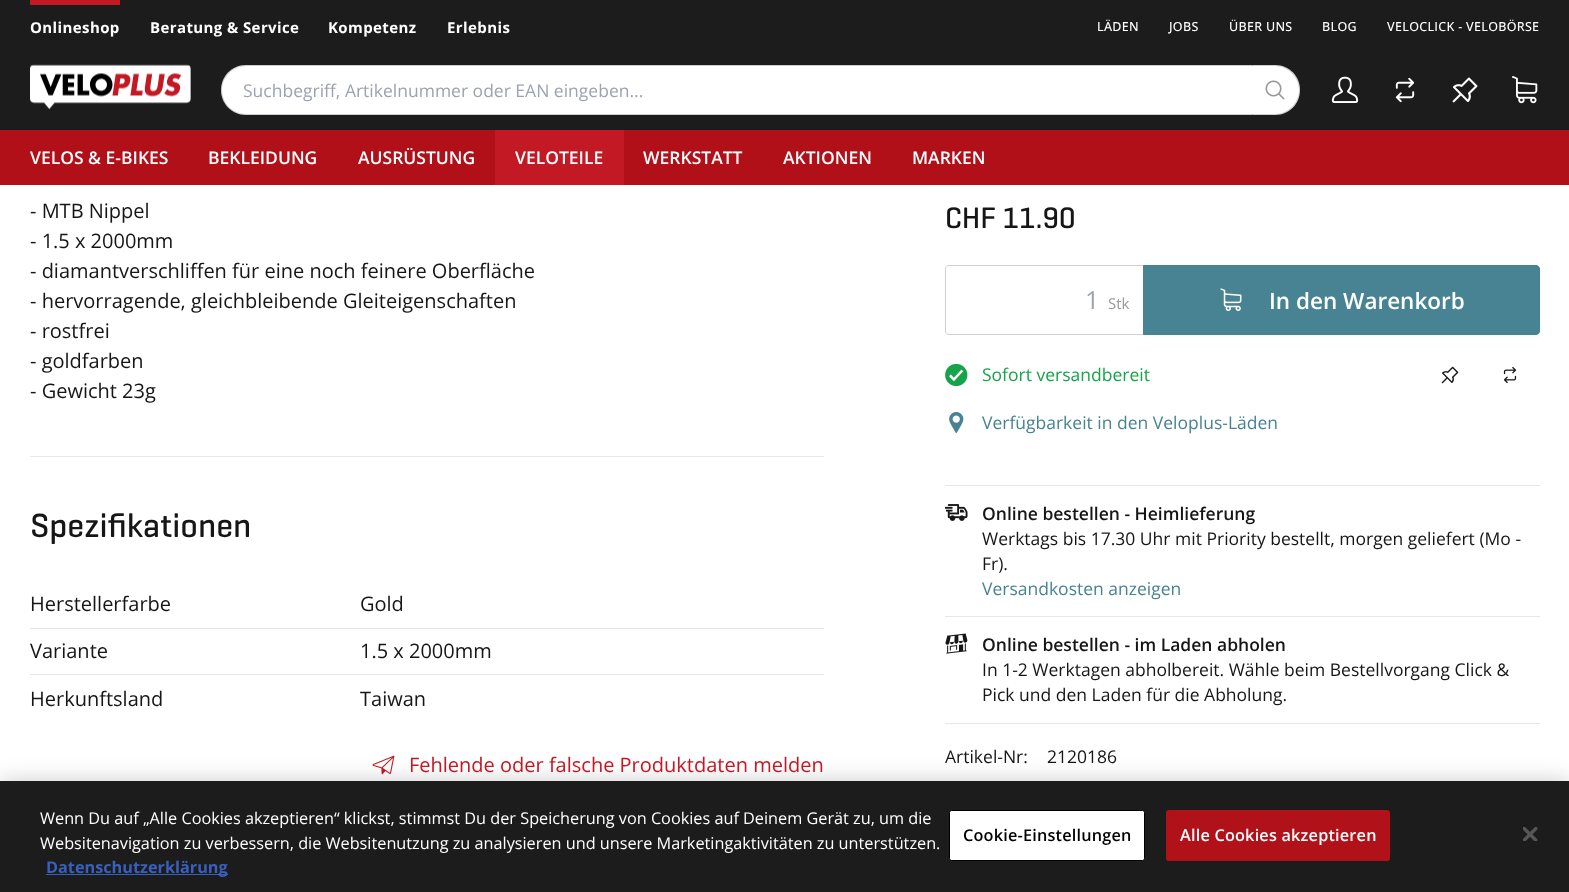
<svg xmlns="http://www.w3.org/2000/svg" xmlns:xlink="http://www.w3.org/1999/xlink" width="1569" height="892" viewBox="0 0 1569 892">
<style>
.cls-1{font:bold 15px Open Sans;letter-spacing:0.4px;fill:#ffffff}
.cls-2{font:500 12.5px Open Sans;letter-spacing:0.3px;fill:#ffffff}
.cls-3{font:17.5px Open Sans;fill:#9ca3af}
.cls-4{font:600 17.5px Open Sans;fill:#ffffff}
.cls-5{font:20px Open Sans;fill:#161616}
.cls-6{font:500 34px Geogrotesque;fill:#161616}
.cls-7{font:20px Open Sans;fill:#c31924}
.cls-8{font:500 30px Geogrotesque;fill:#161616}
.cls-9{font:25px Open Sans;fill:#9ca3af}
.cls-10{font:15px Open Sans;fill:#999999}
.cls-11{font:600 22.5px Open Sans;fill:#ffffff}
.cls-12{font:17.5px Open Sans;fill:#16a34a}
.cls-13{font:17.5px Open Sans;fill:#478392}
.cls-14{font:600 17.5px Open Sans;fill:#161616}
.cls-15{font:17.5px Open Sans;fill:#161616}
.cls-16{font:16.25px Open Sans;fill:#ffffff}
.cls-17{font:bold 16.25px Open Sans;fill:#3860be}
.cls-18{font:600 16.25px Open Sans;letter-spacing:0.2px;fill:#000000}
.cls-19{font:600 16.25px Open Sans;letter-spacing:0.2px;fill:#ffffff}
</style>
<rect width="100%" height="100%" fill="#ffffff"/>
<rect fill="#1c1c1c" x="0" y="0" width="1569" height="130"/>
<rect fill="#c31924" x="30" y="0" width="90" height="5"/>
<image xlink:href="image0.png" x="30" y="64" width="161" height="46"/>
<path fill="#ffffff" d="M246 65H1254V115H246C232 115 221 104 221 90C221 76 232 65 246 65Z"/>
<path fill="#161616" fill-opacity="0.2" fill-rule="evenodd" d="M246 65H1254V115H246C232 115 221 104 221 90C221 76 232 65 246 65ZM246 66H1254V114H246C233 114 222 103 222 90C222 77 233 66 246 66Z"/>
<path fill="#ffffff" d="M1253 65H1275C1289 65 1300 76 1300 90C1300 104 1289 115 1275 115H1253Z"/>
<path fill="#161616" fill-opacity="0.2" fill-rule="evenodd" d="M1252 65H1275C1289 65 1300 76 1300 90C1300 104 1289 115 1275 115H1252ZM1252 66H1275C1288 66 1299 77 1299 90C1299 103 1288 114 1275 114H1252Z"/>
<image xlink:href="image1.png" x="1265" y="80" width="20" height="20"/>
<image xlink:href="image2.png" x="1331" y="76" width="28" height="27"/>
<image xlink:href="image3.png" x="1395" y="77" width="20" height="26"/>
<image xlink:href="image4.png" x="1452" y="77" width="26" height="26"/>
<image xlink:href="image5.png" x="1512" y="76" width="26" height="28"/>
<rect fill="#b11019" x="0" y="130" width="1569" height="55"/>
<rect fill="#c31924" x="495" y="130" width="129" height="55"/>
<rect fill="#e5e7eb" x="30" y="456" width="794" height="1"/>
<rect fill="#e5e5e5" x="30" y="628" width="794" height="1"/>
<rect fill="#e5e5e5" x="30" y="674" width="794" height="1"/>
<image xlink:href="image6.png" x="372" y="755" width="23" height="20"/>
<path fill="#d0d0d0" fill-rule="evenodd" d="M949 265H1109V335H949C947 335 945 333 945 331V269C945 267 947 265 949 265ZM949 266H1109V334H949C947 334 946 333 946 331V269C946 267 947 266 949 266Z"/>
<rect fill="#d0d0d0" x="1108" y="265" width="36" height="1"/>
<rect fill="#d0d0d0" x="1108" y="334" width="36" height="1"/>
<rect fill="#000000" fill-opacity="0.05" filter="blur(1px)" x="1143" y="266" width="397" height="70" rx="4"/>
<path fill="#478392" stroke="#478392" d="M1143.5 265.5H1536C1538 265.5 1539.5 267 1539.5 269V331C1539.5 333 1538 334.5 1536 334.5H1143.5Z"/>
<image xlink:href="image7.png" x="1220" y="288" width="22" height="23"/>
<image xlink:href="image8.png" x="945" y="364" width="23" height="22"/>
<image xlink:href="image9.png" x="1441" y="366" width="18" height="18"/>
<image xlink:href="image10.png" x="1503" y="366" width="14" height="18"/>
<image xlink:href="image11.png" x="949" y="412" width="15" height="21"/>
<rect fill="#e5e7eb" x="945" y="485" width="595" height="1"/>
<rect fill="#e5e7eb" x="945" y="616" width="595" height="1"/>
<image xlink:href="image12.png" x="945" y="504" width="23" height="17"/>
<rect fill="#e5e7eb" x="945" y="723" width="595" height="1"/>
<image xlink:href="image13.png" x="945" y="633" width="23" height="21"/>
<rect fill="#000000" fill-opacity="0.2" filter="blur(11px)" x="0" y="781" width="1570" height="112"/>
<rect fill="#1c1c1c" x="0" y="781" width="1569" height="111"/>
<rect fill="#3860be" x="46" y="874" width="182" height="1"/>
<rect fill="#ffffff" stroke="#000000" x="949.5" y="810.5" width="195" height="50" rx="2"/>
<rect fill="#b11219" stroke="#b11219" x="1166.5" y="810.5" width="223" height="50" rx="2"/>
<image xlink:href="image14.png" x="1523" y="827" width="15" height="14"/>
<text class="cls-1" x="30" y="33">Onlineshop</text>
<text class="cls-1" x="150" y="33">Beratung &amp; Service</text>
<text class="cls-1" x="328" y="33">Kompetenz</text>
<text class="cls-1" x="447" y="33">Erlebnis</text>
<text class="cls-2" x="1097" y="31">LÄDEN</text>
<text class="cls-2" x="1169" y="31">JOBS</text>
<text class="cls-2" x="1229" y="31">ÜBER UNS</text>
<text class="cls-2" x="1322" y="31">BLOG</text>
<text class="cls-2" x="1387" y="31">VELOCLICK - VELOBÖRSE</text>
<text class="cls-3" x="243" y="97">Suchbegriff, Artikelnummer oder EAN eingeben...</text>
<text class="cls-4" x="30" y="164">VELOS &amp; E-BIKES</text>
<text class="cls-4" x="208" y="164">BEKLEIDUNG</text>
<text class="cls-4" x="358" y="164">AUSRÜSTUNG</text>
<text class="cls-4" x="515" y="164">VELOTEILE</text>
<text class="cls-4" x="643" y="164">WERKSTATT</text>
<text class="cls-4" x="783" y="164">AKTIONEN</text>
<text class="cls-4" x="912" y="164">MARKEN</text>
<text class="cls-5"><tspan x="30" y="218">- MTB Nippel</tspan><tspan x="30" y="248">- 1.5 x 2000mm</tspan><tspan x="30" y="278">- diamantverschliffen für eine noch feinere Oberfläche</tspan><tspan x="30" y="308">- hervorragende, gleichbleibende Gleiteigenschaften</tspan><tspan x="30" y="338">- rostfrei</tspan><tspan x="30" y="368">- goldfarben</tspan><tspan x="30" y="398">- Gewicht 23g</tspan></text>
<text class="cls-6" x="30" y="537">Spezifikationen</text>
<text class="cls-5" x="30" y="611">Herstellerfarbe</text>
<text class="cls-5" x="360" y="611">Gold</text>
<text class="cls-5" x="30" y="658">Variante</text>
<text class="cls-5" x="360" y="658">1.5 x 2000mm</text>
<text class="cls-5" x="30" y="706">Herkunftsland</text>
<text class="cls-5" x="360" y="706">Taiwan</text>
<text class="cls-7" x="409" y="772">Fehlende oder falsche Produktdaten melden</text>
<text class="cls-8" x="945" y="228">CHF 11.90</text>
<text class="cls-9" x="1085" y="309">1</text>
<text class="cls-10" x="1108" y="309">Stk</text>
<text class="cls-11" x="1269" y="309">In den Warenkorb</text>
<text class="cls-12" x="982" y="381">Sofort versandbereit</text>
<text class="cls-13" x="982" y="429">Verfügbarkeit in den Veloplus-Läden</text>
<text class="cls-14" x="982" y="520">Online bestellen - Heimlieferung</text>
<text class="cls-15"><tspan x="982" y="545">Werktags bis 17.30 Uhr mit Priority bestellt, morgen geliefert (Mo -</tspan><tspan x="982" y="570">Fr).</tspan></text>
<text class="cls-13" x="982" y="595">Versandkosten anzeigen</text>
<text class="cls-14" x="982" y="651">Online bestellen - im Laden abholen</text>
<text class="cls-15"><tspan x="982" y="676">In 1-2 Werktagen abholbereit. Wähle beim Bestellvorgang Click &amp;</tspan><tspan x="982" y="701">Pick und den Laden für die Abholung.</tspan></text>
<text class="cls-15" x="945" y="763">Artikel-Nr:</text>
<text class="cls-15" x="1047" y="763">2120186</text>
<text class="cls-16"><tspan x="40" y="824">Wenn Du auf „Alle Cookies akzeptieren“ klickst, stimmst Du der Speicherung von Cookies auf Deinem Gerät zu, um die</tspan><tspan x="40" y="849">Websitenavigation zu verbessern, die Websitenutzung zu analysieren und unsere Marketingaktivitäten zu unterstützen.</tspan></text>
<text class="cls-17" x="46" y="873">Datenschutzerklärung</text>
<text class="cls-18" x="963" y="841">Cookie-Einstellungen</text>
<text class="cls-19" x="1180" y="841">Alle Cookies akzeptieren</text>
</svg>
